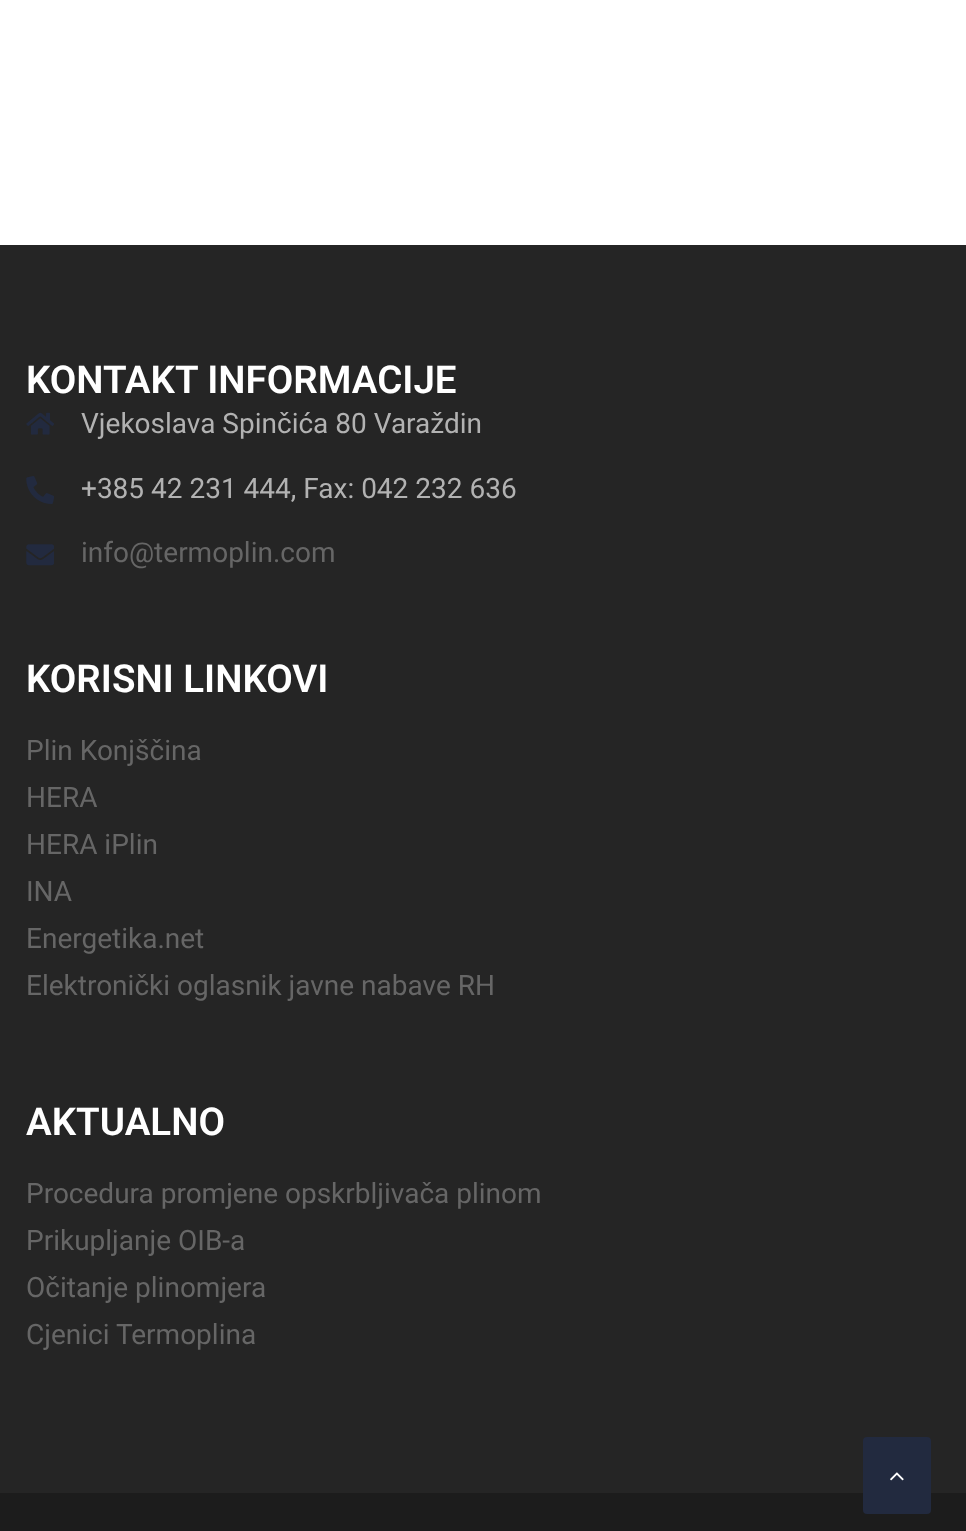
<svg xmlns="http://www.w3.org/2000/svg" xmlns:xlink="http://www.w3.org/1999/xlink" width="966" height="1531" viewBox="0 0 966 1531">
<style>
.cls-1{font:600 38.5px Roboto;fill:#ffffff}
.cls-2{font:28px Roboto;fill:#b2b2b2}
.cls-3{font:28px Roboto;fill:#666666}
</style>
<rect width="100%" height="100%" fill="#ffffff"/>
<rect fill="#252525" x="0" y="245" width="966" height="1248"/>
<image xlink:href="image0.png" x="26" y="412" width="28" height="23"/>
<image xlink:href="image1.png" x="26" y="476" width="28" height="28"/>
<image xlink:href="image2.png" x="26" y="544" width="28" height="22"/>
<rect fill="#1c1c1c" x="0" y="1493" width="966" height="38"/>
<rect fill="#222a3f" x="863" y="1437" width="68" height="77" rx="4"/>
<image xlink:href="image3.png" x="890" y="1472" width="14" height="9"/>
<text class="cls-1" x="26" y="393">KONTAKT INFORMACIJE</text>
<text class="cls-2" x="81" y="433">Vjekoslava Spinčića 80 Varaždin</text>
<text class="cls-2" x="81" y="498">+385 42 231 444, Fax: 042 232 636</text>
<text class="cls-3" x="81" y="562">info@termoplin.com</text>
<text class="cls-1" x="26" y="692">KORISNI LINKOVI</text>
<text class="cls-3"><tspan x="26" y="760">Plin Konjščina</tspan><tspan x="26" y="807">HERA</tspan><tspan x="26" y="854">HERA iPlin</tspan><tspan x="26" y="901">INA</tspan><tspan x="26" y="948">Energetika.net</tspan><tspan x="26" y="995">Elektronički oglasnik javne nabave RH</tspan></text>
<text class="cls-1" x="26" y="1135">AKTUALNO</text>
<text class="cls-3"><tspan x="26" y="1203">Procedura promjene opskrbljivača plinom</tspan><tspan x="26" y="1250">Prikupljanje OIB-a</tspan><tspan x="26" y="1297">Očitanje plinomjera</tspan><tspan x="26" y="1344">Cjenici Termoplina</tspan></text>
</svg>
